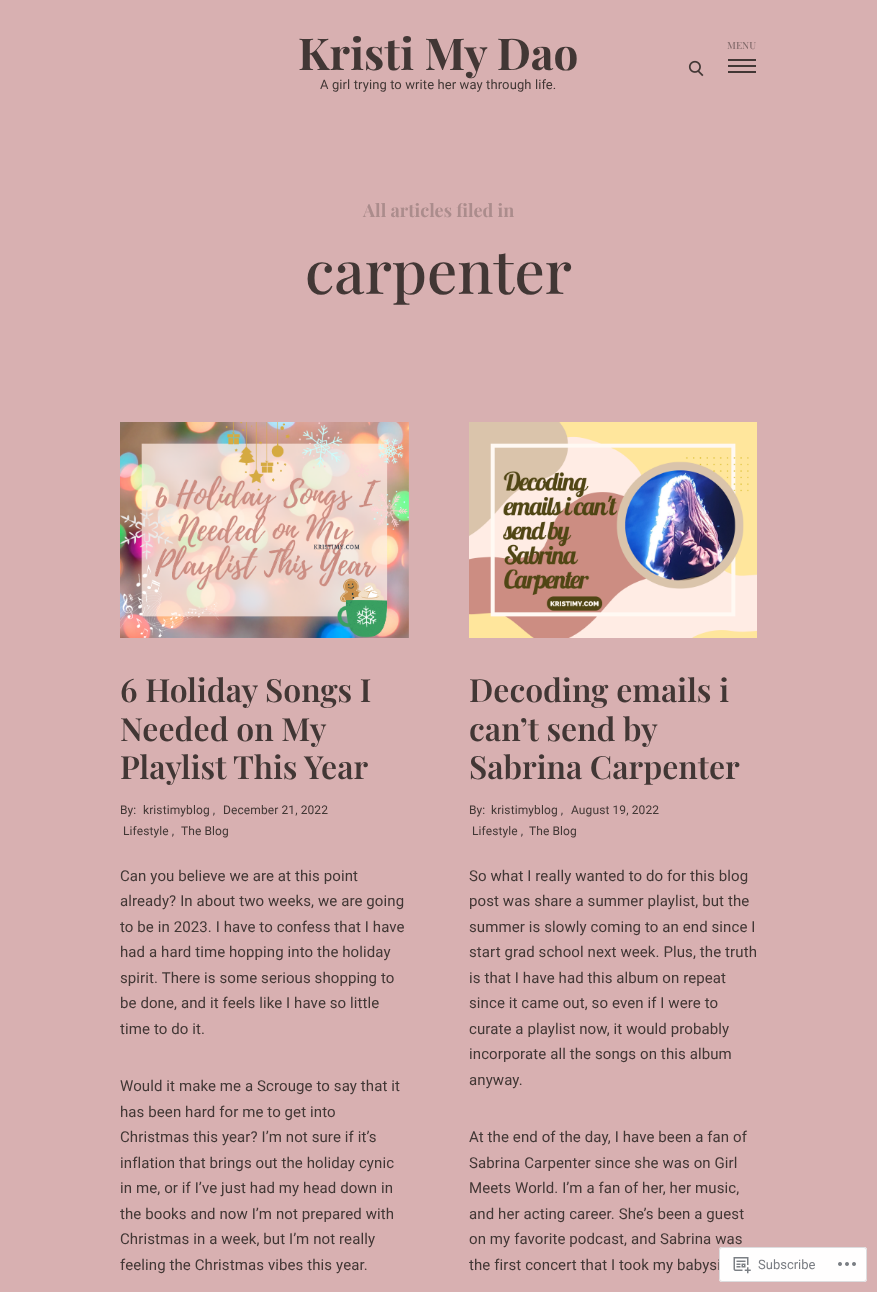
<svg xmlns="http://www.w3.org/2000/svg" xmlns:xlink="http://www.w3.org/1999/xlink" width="877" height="1292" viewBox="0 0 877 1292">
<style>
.cls-1{font:bold 44px Playfair Display;letter-spacing:0.1px;fill:#423735}
.cls-2{font:13px Roboto;letter-spacing:0.1px;fill:#423735}
.cls-3{font:500 10px Playfair Display;fill:#826a6a}
.cls-4{font:bold 18px Playfair Display;fill:#ab8c8c}
.cls-5{font:500 60px Playfair Display;fill:#423735}
.cls-6{font:600 32px Playfair Display;fill:#423735}
.cls-7{font:12px Roboto;letter-spacing:0.1px;fill:#423735}
.cls-8{font:15px Roboto;letter-spacing:0.1px;fill:#423735}
.cls-9{font:13px Roboto;fill:#7a7d83}
</style>
<rect width="100%" height="100%" fill="#d8b0b1"/>
<rect fill="#423735" x="728" y="59" width="28" height="2"/>
<rect fill="#423735" x="728" y="65" width="28" height="2"/>
<rect fill="#423735" x="728" y="71" width="28" height="2"/>
<image xlink:href="image0.png" x="688" y="60" width="16" height="17"/>
<image xlink:href="image1.png" x="120" y="422" width="289" height="216"/>
<image xlink:href="image2.png" x="469" y="422" width="288" height="216"/>
<text class="cls-1" x="298" y="70">Kristi My Dao</text>
<text class="cls-2" x="320" y="89">A girl trying to write her way through life.</text>
<text class="cls-3" x="727" y="49">MENU</text>
<text class="cls-4" x="363" y="217">All articles filed in</text>
<text class="cls-5" x="305" y="294">carpenter</text>
<text class="cls-6"><tspan x="120" y="702">6 Holiday Songs I</tspan><tspan x="120" y="741">Needed on My</tspan><tspan x="120" y="779">Playlist This Year</tspan></text>
<text class="cls-7" x="120" y="814">By:</text>
<text class="cls-7" x="143" y="814">kristimyblog ,</text>
<text class="cls-7" x="223" y="814">December 21, 2022</text>
<text class="cls-7" x="123" y="835">Lifestyle ,</text>
<text class="cls-7" x="181" y="835">The Blog</text>
<text class="cls-8"><tspan x="120" y="881">Can you believe we are at this point</tspan><tspan x="120" y="906">already? In about two weeks, we are going</tspan><tspan x="120" y="932">to be in 2023. I have to confess that I have</tspan><tspan x="120" y="957">had a hard time hopping into the holiday</tspan><tspan x="120" y="983">spirit. There is some serious shopping to</tspan><tspan x="120" y="1008">be done, and it feels like I have so little</tspan><tspan x="120" y="1034">time to do it.</tspan></text>
<text class="cls-8"><tspan x="120" y="1091">Would it make me a Scrouge to say that it</tspan><tspan x="120" y="1117">has been hard for me to get into</tspan><tspan x="120" y="1142">Christmas this year? I’m not sure if it’s</tspan><tspan x="120" y="1168">inflation that brings out the holiday cynic</tspan><tspan x="120" y="1193">in me, or if I’ve just had my head down in</tspan><tspan x="120" y="1219">the books and now I’m not prepared with</tspan><tspan x="120" y="1244">Christmas in a week, but I’m not really</tspan><tspan x="120" y="1270">feeling the Christmas vibes this year.</tspan></text>
<text class="cls-6"><tspan x="469" y="702">Decoding emails i</tspan><tspan x="469" y="741">can’t send by</tspan><tspan x="469" y="779">Sabrina Carpenter</tspan></text>
<text class="cls-7" x="469" y="814">By:</text>
<text class="cls-7" x="491" y="814">kristimyblog ,</text>
<text class="cls-7" x="571" y="814">August 19, 2022</text>
<text class="cls-7" x="472" y="835">Lifestyle ,</text>
<text class="cls-7" x="529" y="835">The Blog</text>
<text class="cls-8"><tspan x="469" y="881">So what I really wanted to do for this blog</tspan><tspan x="469" y="906">post was share a summer playlist, but the</tspan><tspan x="469" y="932">summer is slowly coming to an end since I</tspan><tspan x="469" y="957">start grad school next week. Plus, the truth</tspan><tspan x="469" y="983">is that I have had this album on repeat</tspan><tspan x="469" y="1008">since it came out, so even if I were to</tspan><tspan x="469" y="1034">curate a playlist now, it would probably</tspan><tspan x="469" y="1059">incorporate all the songs on this album</tspan><tspan x="469" y="1085">anyway.</tspan></text>
<text class="cls-8"><tspan x="469" y="1142">At the end of the day, I have been a fan of</tspan><tspan x="469" y="1168">Sabrina Carpenter since she was on Girl</tspan><tspan x="469" y="1193">Meets World. I’m a fan of her, her music,</tspan><tspan x="469" y="1219">and her acting career. She’s been a guest</tspan><tspan x="469" y="1244">on my favorite podcast, and Sabrina was</tspan><tspan x="469" y="1270">the first concert that I took my babysi</tspan></text>
<rect fill="#ffffff" fill-opacity="0.98" x="719" y="1247" width="148" height="35" rx="3"/>
<rect fill="none" stroke="#dcdcde" stroke-opacity="0.98" x="719.5" y="1247.5" width="147" height="34" rx="2.5"/>
<image xlink:href="image3.png" x="733" y="1257" width="18" height="17"/>
<text class="cls-9" x="758" y="1269">Subscribe</text>
<image xlink:href="image4.png" x="838" y="1262" width="18" height="4"/>
</svg>
